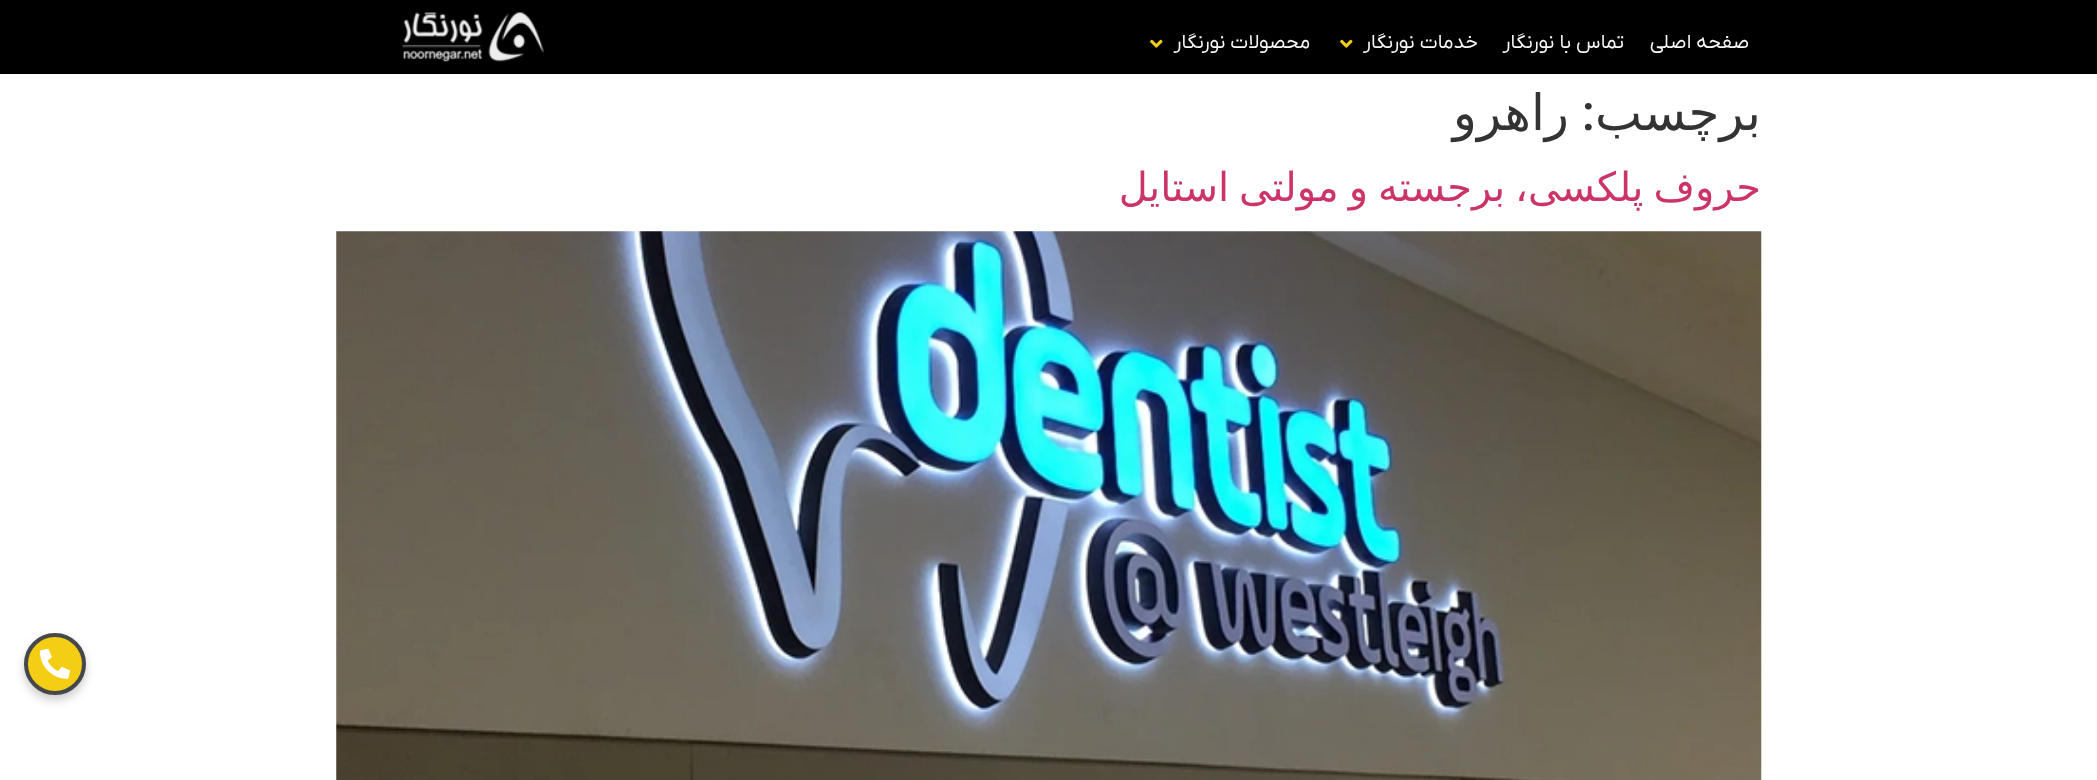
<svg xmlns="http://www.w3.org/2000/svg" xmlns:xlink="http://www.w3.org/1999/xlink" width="2097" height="780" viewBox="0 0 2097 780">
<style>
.cls-1{font:20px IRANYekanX;direction:rtl;fill:#f7f7f7}
.cls-2{font:50px DejaVu Sans;direction:rtl;fill:#333333}
.cls-3{font:500 50px Roboto;direction:rtl;fill:#333333}
.cls-4{font:40px DejaVu Sans;direction:rtl;fill:#cc3366}
</style>
<rect width="100%" height="100%" fill="#ffffff"/>
<rect fill="#000000" x="0" y="0" width="2097" height="74"/>
<image xlink:href="image0.png" x="1340" y="39" width="13" height="9"/>
<image xlink:href="image0.png" x="1150" y="39" width="13" height="9"/>
<image xlink:href="image1.png" x="402" y="12" width="142" height="50"/>
<image xlink:href="image2.png" x="336" y="231" width="1426" height="549"/>
<rect fill="#000000" fill-opacity="0.2" filter="blur(5px)" x="24" y="638" width="62" height="62" rx="31"/>
<circle fill="#f4ce14" stroke="#45474b" stroke-width="4" cx="55" cy="664" r="29"/>
<image xlink:href="image3.png" x="40" y="648" width="30" height="31"/>
<text class="cls-1" x="1749" y="48">صفحه اصلی</text>
<text class="cls-1" x="1624" y="48">تماس با نورنگار</text>
<text class="cls-1" x="1478" y="48">خدمات نورنگار</text>
<text class="cls-1" x="1310" y="48">محصولات نورنگار</text>
<text class="cls-2" x="1761" y="130">برچسب</text>
<text class="cls-3" x="1595" y="130">:</text>
<text class="cls-2" x="1569" y="130">راهرو</text>
<text class="cls-4" x="1761" y="201" word-spacing="-2.75">حروف پلکسی، برجسته و مولتی استایل</text>
</svg>
